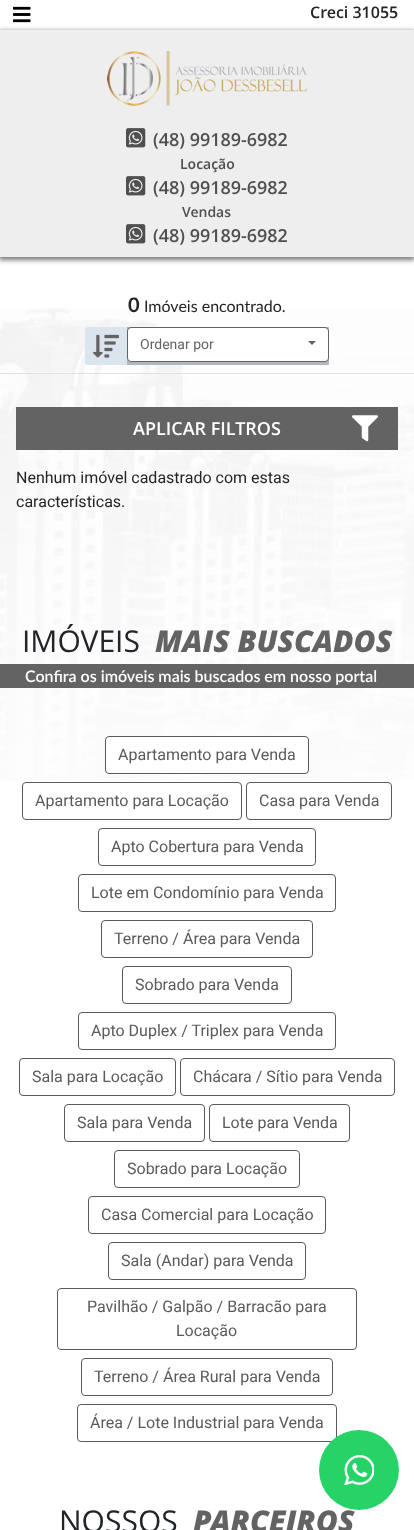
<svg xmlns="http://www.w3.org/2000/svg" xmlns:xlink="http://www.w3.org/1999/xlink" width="414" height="1530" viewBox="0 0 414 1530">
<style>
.cls-1{font:600 16px Open Sans;fill:#212529}
.cls-2{font:600 18px Open Sans;fill:#4f4f4f}
.cls-3{font:600 14px Open Sans;fill:#4f4f4f}
.cls-4{font:bold 20px Lato;fill:#212529}
.cls-5{font:16px Lato;fill:#212529}
.cls-6{font:14px Roboto;fill:#636363}
.cls-7{font:600 18px Open Sans;fill:#ffffff}
.cls-8{font:16px Roboto;fill:#212529}
.cls-9{font:30px Open Sans;fill:#212529}
.cls-10{font:italic 800 30px Open Sans;fill:#636363}
.cls-11{font:600 16px Lato;fill:#ffffff}
.cls-12{font:16px Roboto;fill:#5a5a5a}
</style>
<rect width="100%" height="100%" fill="#ffffff"/>
<image xlink:href="image0.png" x="0" y="308" width="414" height="473"/>
<rect fill="#787878" filter="blur(2.5px)" x="-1" y="31" width="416" height="229"/>
<image xlink:href="image1.png" x="13" y="6" width="18" height="17"/>
<rect fill="#eeeeee" x="0" y="30" width="414" height="227"/>
<image xlink:href="image2.png" x="107" y="51" width="200" height="55"/>
<image xlink:href="image3.png" x="126" y="128" width="20" height="20"/>
<image xlink:href="image3.png" x="126" y="176" width="20" height="20"/>
<image xlink:href="image3.png" x="126" y="224" width="20" height="20"/>
<rect fill="#dee2e6" x="0" y="373" width="414" height="1"/>
<rect fill="#dce4ee" x="85" y="327" width="244" height="38" rx="3"/>
<image xlink:href="image4.png" x="93" y="334" width="26" height="24"/>
<rect fill="#000000" fill-opacity="0.2" x="127" y="327" width="202" height="38"/>
<rect fill="#ffffff" stroke="#636363" x="127.5" y="327.5" width="201" height="34" rx="3.5"/>
<path fill="#636363" d="M308 341H316L312 345Z"/>
<rect fill="#636363" x="16" y="407" width="382" height="43"/>
<image xlink:href="image5.png" x="352" y="415" width="26" height="27"/>
<rect fill="#636363" x="0" y="664" width="414" height="24"/>
<rect fill="#ffffff" stroke="#5a5a5a" x="105.5" y="736.5" width="203" height="37" rx="3.5"/>
<rect fill="none" stroke="#5a5a5a" x="22.5" y="782.5" width="219" height="37" rx="3.5"/>
<rect fill="none" stroke="#5a5a5a" x="246.5" y="782.5" width="145" height="37" rx="3.5"/>
<rect fill="none" stroke="#5a5a5a" x="98.5" y="828.5" width="217" height="37" rx="3.5"/>
<rect fill="none" stroke="#5a5a5a" x="78.5" y="874.5" width="257" height="37" rx="3.5"/>
<rect fill="none" stroke="#5a5a5a" x="101.5" y="920.5" width="211" height="37" rx="3.5"/>
<rect fill="none" stroke="#5a5a5a" x="122.5" y="966.5" width="169" height="37" rx="3.5"/>
<rect fill="none" stroke="#5a5a5a" x="78.5" y="1012.5" width="257" height="37" rx="3.5"/>
<rect fill="none" stroke="#5a5a5a" x="19.5" y="1058.5" width="156" height="37" rx="3.5"/>
<rect fill="none" stroke="#5a5a5a" x="180.5" y="1058.5" width="214" height="37" rx="3.5"/>
<rect fill="none" stroke="#5a5a5a" x="64.5" y="1104.5" width="140" height="37" rx="3.5"/>
<rect fill="none" stroke="#5a5a5a" x="209.5" y="1104.5" width="140" height="37" rx="3.5"/>
<rect fill="none" stroke="#5a5a5a" x="114.5" y="1150.5" width="185" height="37" rx="3.5"/>
<rect fill="none" stroke="#5a5a5a" x="88.5" y="1196.5" width="237" height="37" rx="3.5"/>
<rect fill="none" stroke="#5a5a5a" x="108.5" y="1242.5" width="197" height="37" rx="3.5"/>
<rect fill="none" stroke="#5a5a5a" x="57.5" y="1288.5" width="299" height="61" rx="3.5"/>
<rect fill="none" stroke="#5a5a5a" x="81.5" y="1358.5" width="251" height="37" rx="3.5"/>
<rect fill="none" stroke="#5a5a5a" x="77.5" y="1404.5" width="259" height="37" rx="3.5"/>
<text class="cls-1" x="310" y="18">Creci 31055</text>
<text class="cls-2" x="153" y="146">(48) 99189-6982</text>
<text class="cls-3" x="180" y="169">Locação</text>
<text class="cls-2" x="153" y="194">(48) 99189-6982</text>
<text class="cls-3" x="182" y="217">Vendas</text>
<text class="cls-2" x="153" y="242">(48) 99189-6982</text>
<text class="cls-4" x="128" y="312">0</text>
<text class="cls-5" x="144" y="312">Imóveis encontrado.</text>
<text class="cls-6" x="140" y="349">Ordenar por</text>
<text class="cls-7" x="133" y="435">APLICAR FILTROS</text>
<text class="cls-8"><tspan x="16" y="483">Nenhum imóvel cadastrado com estas</tspan><tspan x="16" y="507">características.</tspan></text>
<text class="cls-9" x="22" y="652">IMÓVEIS</text>
<text class="cls-10" x="155" y="652">MAIS BUSCADOS</text>
<text class="cls-11" x="25" y="682">Confira os imóveis mais buscados em nosso portal</text>
<text class="cls-12" x="118" y="760">Apartamento para Venda</text>
<text class="cls-12" x="35" y="806">Apartamento para Locação</text>
<text class="cls-12" x="259" y="806">Casa para Venda</text>
<text class="cls-12" x="111" y="852">Apto Cobertura para Venda</text>
<text class="cls-12" x="91" y="898">Lote em Condomínio para Venda</text>
<text class="cls-12" x="114" y="944">Terreno / Área para Venda</text>
<text class="cls-12" x="135" y="990">Sobrado para Venda</text>
<text class="cls-12" x="91" y="1036">Apto Duplex / Triplex para Venda</text>
<text class="cls-12" x="32" y="1082">Sala para Locação</text>
<text class="cls-12" x="193" y="1082">Chácara / Sítio para Venda</text>
<text class="cls-12" x="77" y="1128">Sala para Venda</text>
<text class="cls-12" x="222" y="1128">Lote para Venda</text>
<text class="cls-12" x="127" y="1174">Sobrado para Locação</text>
<text class="cls-12" x="101" y="1220">Casa Comercial para Locação</text>
<text class="cls-12" x="121" y="1266">Sala (Andar) para Venda</text>
<text class="cls-12" x="87" y="1312">Pavilhão / Galpão / Barracão para</text>
<text class="cls-12" x="176" y="1336">Locação</text>
<text class="cls-12" x="94" y="1382">Terreno / Área Rural para Venda</text>
<text class="cls-12" x="90" y="1428">Área / Lote Industrial para Venda</text>
<circle fill="#26d367" cx="359" cy="1470" r="40"/>
<image xlink:href="image6.png" x="344" y="1455" width="30" height="30"/>
<text class="cls-9" x="59" y="1532">NOSSOS</text>
<text class="cls-10" x="193" y="1532">PARCEIROS</text>
</svg>
